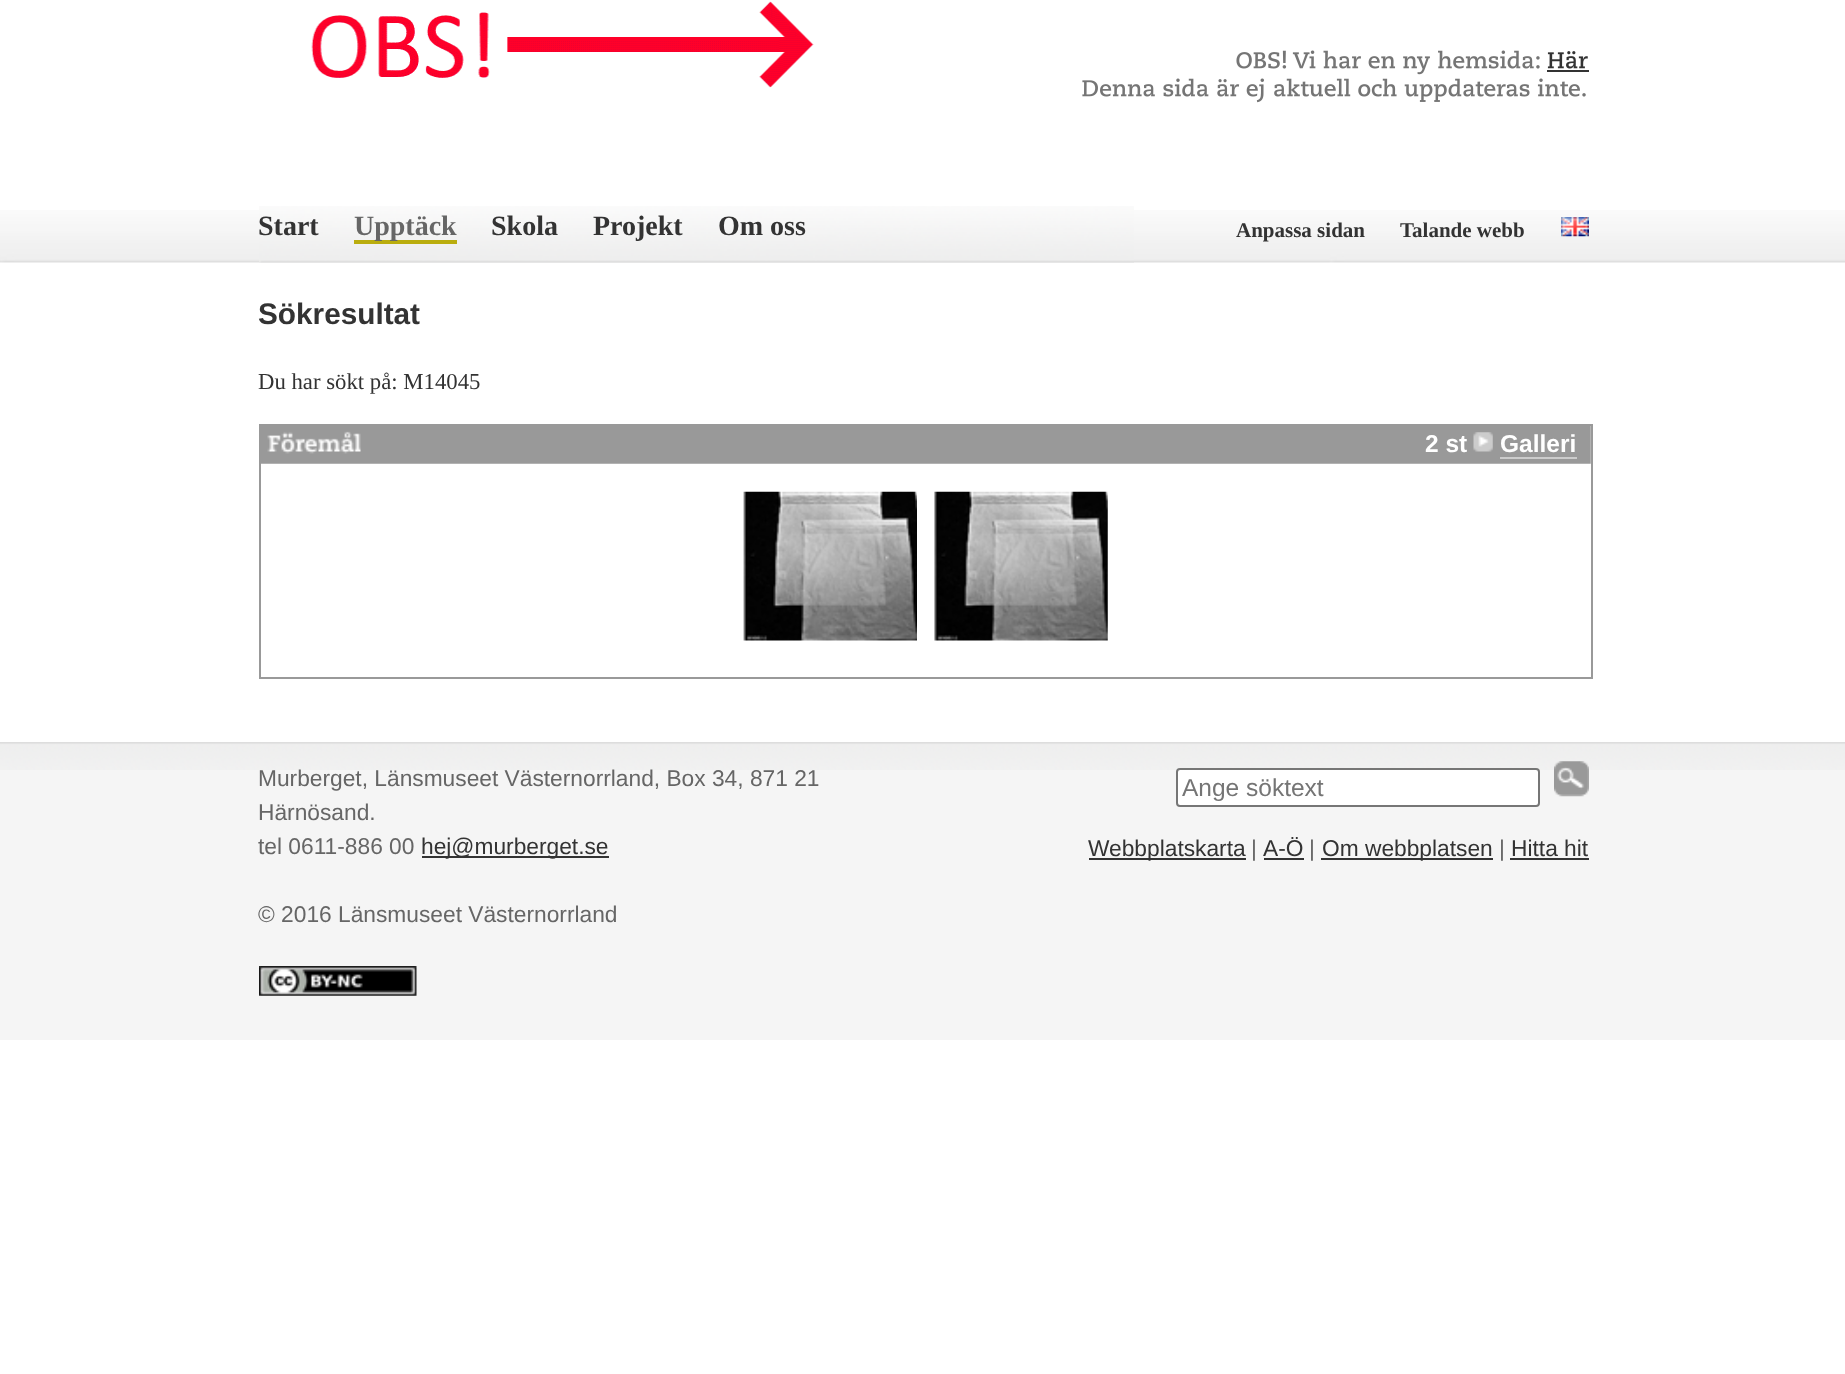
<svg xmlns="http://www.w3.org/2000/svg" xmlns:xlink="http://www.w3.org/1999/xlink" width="1845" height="1374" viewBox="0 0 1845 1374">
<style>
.cls-1{font:bold 28px Liberation Serif;fill:#333333}
.cls-2{font:bold 28px Liberation Serif;fill:#666666}
.cls-3{font:bold 21px Liberation Serif;fill:#333333}
.cls-4{font:bold 29.75px Liberation Sans;fill:#333333}
.cls-5{font:22.75px Liberation Serif;fill:#333333}
.cls-6{font:bold 24.5px Liberation Sans;fill:#ffffff}
.cls-7{font:22.75px Liberation Sans;fill:#666666}
.cls-8{font:22.75px Liberation Sans;fill:#333333}
.cls-9{font:24.5px Liberation Sans;fill:#757575}
</style>
<rect width="100%" height="100%" fill="#ffffff"/>
<image xlink:href="image0.png" x="0" y="210" width="1845" height="53"/>
<image xlink:href="image1.png" x="311" y="1" width="503" height="87"/>
<image xlink:href="image2.png" x="1236" y="50" width="304" height="25"/>
<image xlink:href="image3.png" x="1547" y="51" width="41" height="18"/>
<rect fill="#333333" x="1547" y="70" width="42" height="2"/>
<image xlink:href="image4.png" x="1082" y="78" width="504" height="25"/>
<image xlink:href="image5.png" x="259" y="206" width="875" height="57"/>
<rect fill="#baad0e" x="354" y="240" width="103" height="4"/>
<image xlink:href="image6.png" x="1561" y="217" width="28" height="20"/>
<rect fill="none" stroke="#999999" stroke-width="2" x="260" y="425" width="1332" height="253"/>
<image xlink:href="image7.png" x="261" y="426" width="1330" height="38"/>
<image xlink:href="image8.png" x="1473" y="432" width="20" height="20"/>
<rect fill="#cccccc" x="1500" y="457" width="77" height="2"/>
<image xlink:href="image9.png" x="743" y="491" width="174" height="150"/>
<image xlink:href="image10.png" x="934" y="491" width="174" height="150"/>
<rect fill="#f5f5f5" x="0" y="770" width="1845" height="270"/>
<image xlink:href="image11.png" x="0" y="742" width="1845" height="28"/>
<image xlink:href="image12.png" x="259" y="742" width="1330" height="28"/>
<rect fill="#333333" x="422" y="856" width="187" height="2"/>
<image xlink:href="image13.png" x="259" y="966" width="158" height="30"/>
<rect fill="#ffffff" stroke="#767676" stroke-width="2" x="1177" y="769" width="362" height="37" rx="3"/>
<image xlink:href="image14.png" x="1554" y="761" width="35" height="36"/>
<rect fill="#333333" x="1089" y="858" width="157" height="2"/>
<rect fill="#333333" x="1264" y="858" width="40" height="2"/>
<rect fill="#333333" x="1321" y="858" width="172" height="2"/>
<rect fill="#333333" x="1510" y="858" width="79" height="2"/>
<text class="cls-1" x="258" y="235">Start</text>
<text class="cls-2" x="354" y="235">Upptäck</text>
<text class="cls-1" x="491" y="235">Skola</text>
<text class="cls-1" x="593" y="235">Projekt</text>
<text class="cls-1" x="718" y="235">Om oss</text>
<text class="cls-3" x="1236" y="237">Anpassa sidan</text>
<text class="cls-3" x="1400" y="237">Talande webb</text>
<text class="cls-4" x="258" y="324">Sökresultat</text>
<text class="cls-5" x="258" y="389">Du har sökt på: M14045</text>
<text class="cls-6" x="1425" y="452">2 st</text>
<text class="cls-6" x="1500" y="452">Galleri</text>
<text class="cls-7"><tspan x="258" y="786">Murberget, Länsmuseet Västernorrland, Box 34, 871 21</tspan><tspan x="258" y="820">Härnösand.</tspan><tspan x="258" y="854">tel 0611-886 00</tspan></text>
<text class="cls-8" x="421" y="854">hej@murberget.se</text>
<text class="cls-7" x="258" y="922">© 2016 Länsmuseet Västernorrland</text>
<text class="cls-9" x="1182" y="796">Ange söktext</text>
<text class="cls-8" x="1088" y="856">Webbplatskarta</text>
<text class="cls-7" x="1251" y="856">|</text>
<text class="cls-8" x="1263" y="856">A-Ö</text>
<text class="cls-7" x="1309" y="856">|</text>
<text class="cls-8" x="1322" y="856">Om webbplatsen</text>
<text class="cls-7" x="1499" y="856">|</text>
<text class="cls-8" x="1511" y="856">Hitta hit</text>
</svg>
